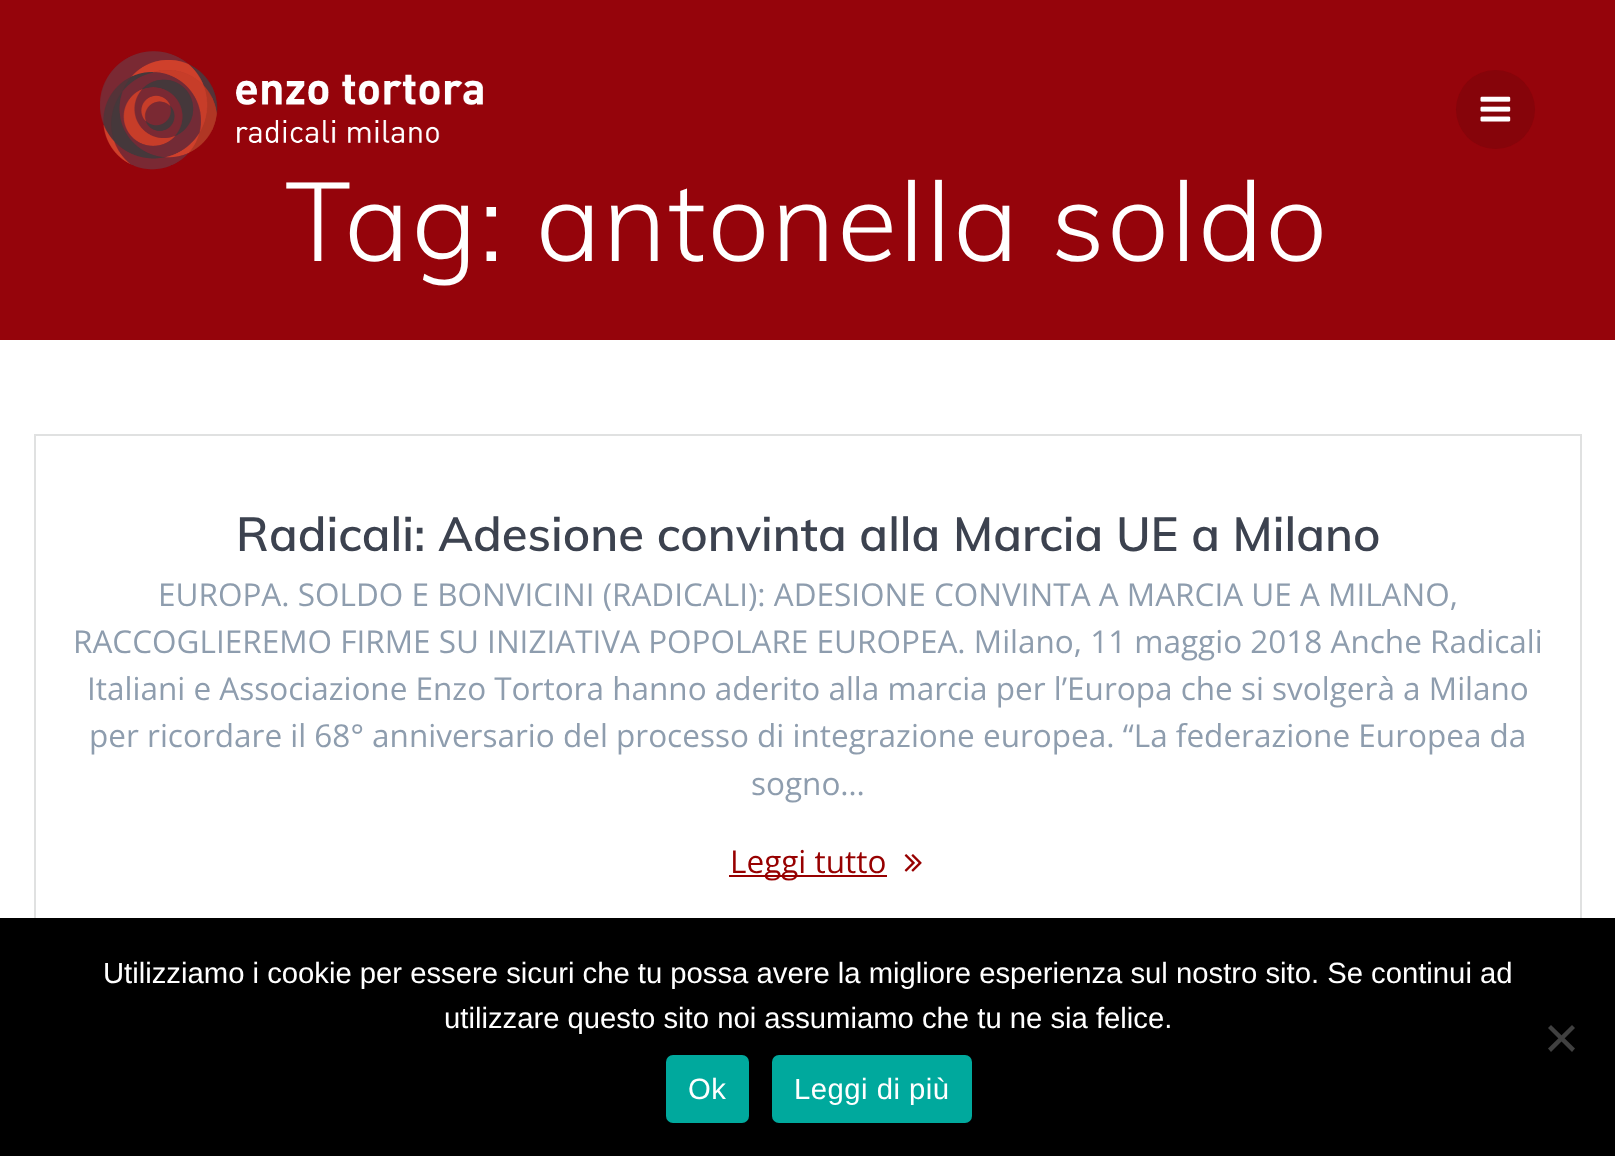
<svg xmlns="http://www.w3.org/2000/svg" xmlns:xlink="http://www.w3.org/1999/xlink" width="1615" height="1156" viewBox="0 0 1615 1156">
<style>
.cls-1{font:300 110.25px Muli;letter-spacing:2px;fill:#ffffff}
.cls-2{font:600 47.25px Muli;fill:#3c424f}
.cls-3{font:31.5px Open Sans;fill:#8e9dae}
.cls-4{font:31.5px Open Sans;fill:#970000}
.cls-5{font:29.25px Liberation Sans;fill:#ffffff}
.cls-6{font:29.25px Liberation Sans;letter-spacing:0.5px;fill:#ffffff}
</style>
<rect width="100%" height="100%" fill="#ffffff"/>
<rect fill="#95040b" x="0" y="0" width="1615" height="340"/>
<image xlink:href="image0.png" x="100" y="51" width="383" height="119"/>
<circle fill="#86040a" cx="1495.5" cy="109.5" r="39.5"/>
<image xlink:href="image1.png" x="1480" y="96" width="31" height="26"/>
<rect fill="none" stroke="#e0e1e1" stroke-width="2" x="35" y="435" width="1546" height="514"/>
<rect fill="#970000" x="729" y="875" width="158" height="2"/>
<image xlink:href="image2.png" x="904" y="854" width="18" height="18"/>
<rect fill="#000000" x="0" y="918" width="1615" height="238"/>
<path fill="#404040" d="M1572 1025L1575 1028L1551 1052L1548 1048.5Z"/>
<path fill="#404040" d="M1548 1028L1551 1025L1575 1048.5L1572 1052Z"/>
<rect fill="#00a99d" x="666" y="1055" width="83" height="68" rx="7"/>
<rect fill="#00a99d" x="772" y="1055" width="200" height="68" rx="7"/>
<text class="cls-1" x="285" y="261">Tag: antonella soldo</text>
<text class="cls-2" x="236" y="551">Radicali: Adesione convinta alla Marcia UE a Milano</text>
<text class="cls-3" x="158" y="606">EUROPA. SOLDO E BONVICINI (RADICALI): ADESIONE CONVINTA A MARCIA UE A MILANO,</text>
<text class="cls-3" x="73" y="653">RACCOGLIEREMO FIRME SU INIZIATIVA POPOLARE EUROPEA. Milano, 11 maggio 2018 Anche Radicali</text>
<text class="cls-3" x="87" y="700">Italiani e Associazione Enzo Tortora hanno aderito alla marcia per l’Europa che si svolgerà a Milano</text>
<text class="cls-3" x="89" y="747">per ricordare il 68° anniversario del processo di integrazione europea. “La federazione Europea da</text>
<text class="cls-3" x="751" y="795">sogno…</text>
<text class="cls-4" x="730" y="873">Leggi tutto</text>
<text class="cls-5" x="103" y="983">Utilizziamo i cookie per essere sicuri che tu possa avere la migliore esperienza sul nostro sito. Se continui ad</text>
<text class="cls-5" x="444" y="1028">utilizzare questo sito noi assumiamo che tu ne sia felice.</text>
<text class="cls-6" x="688" y="1099">Ok</text>
<text class="cls-6" x="794" y="1099">Leggi di più</text>
</svg>
